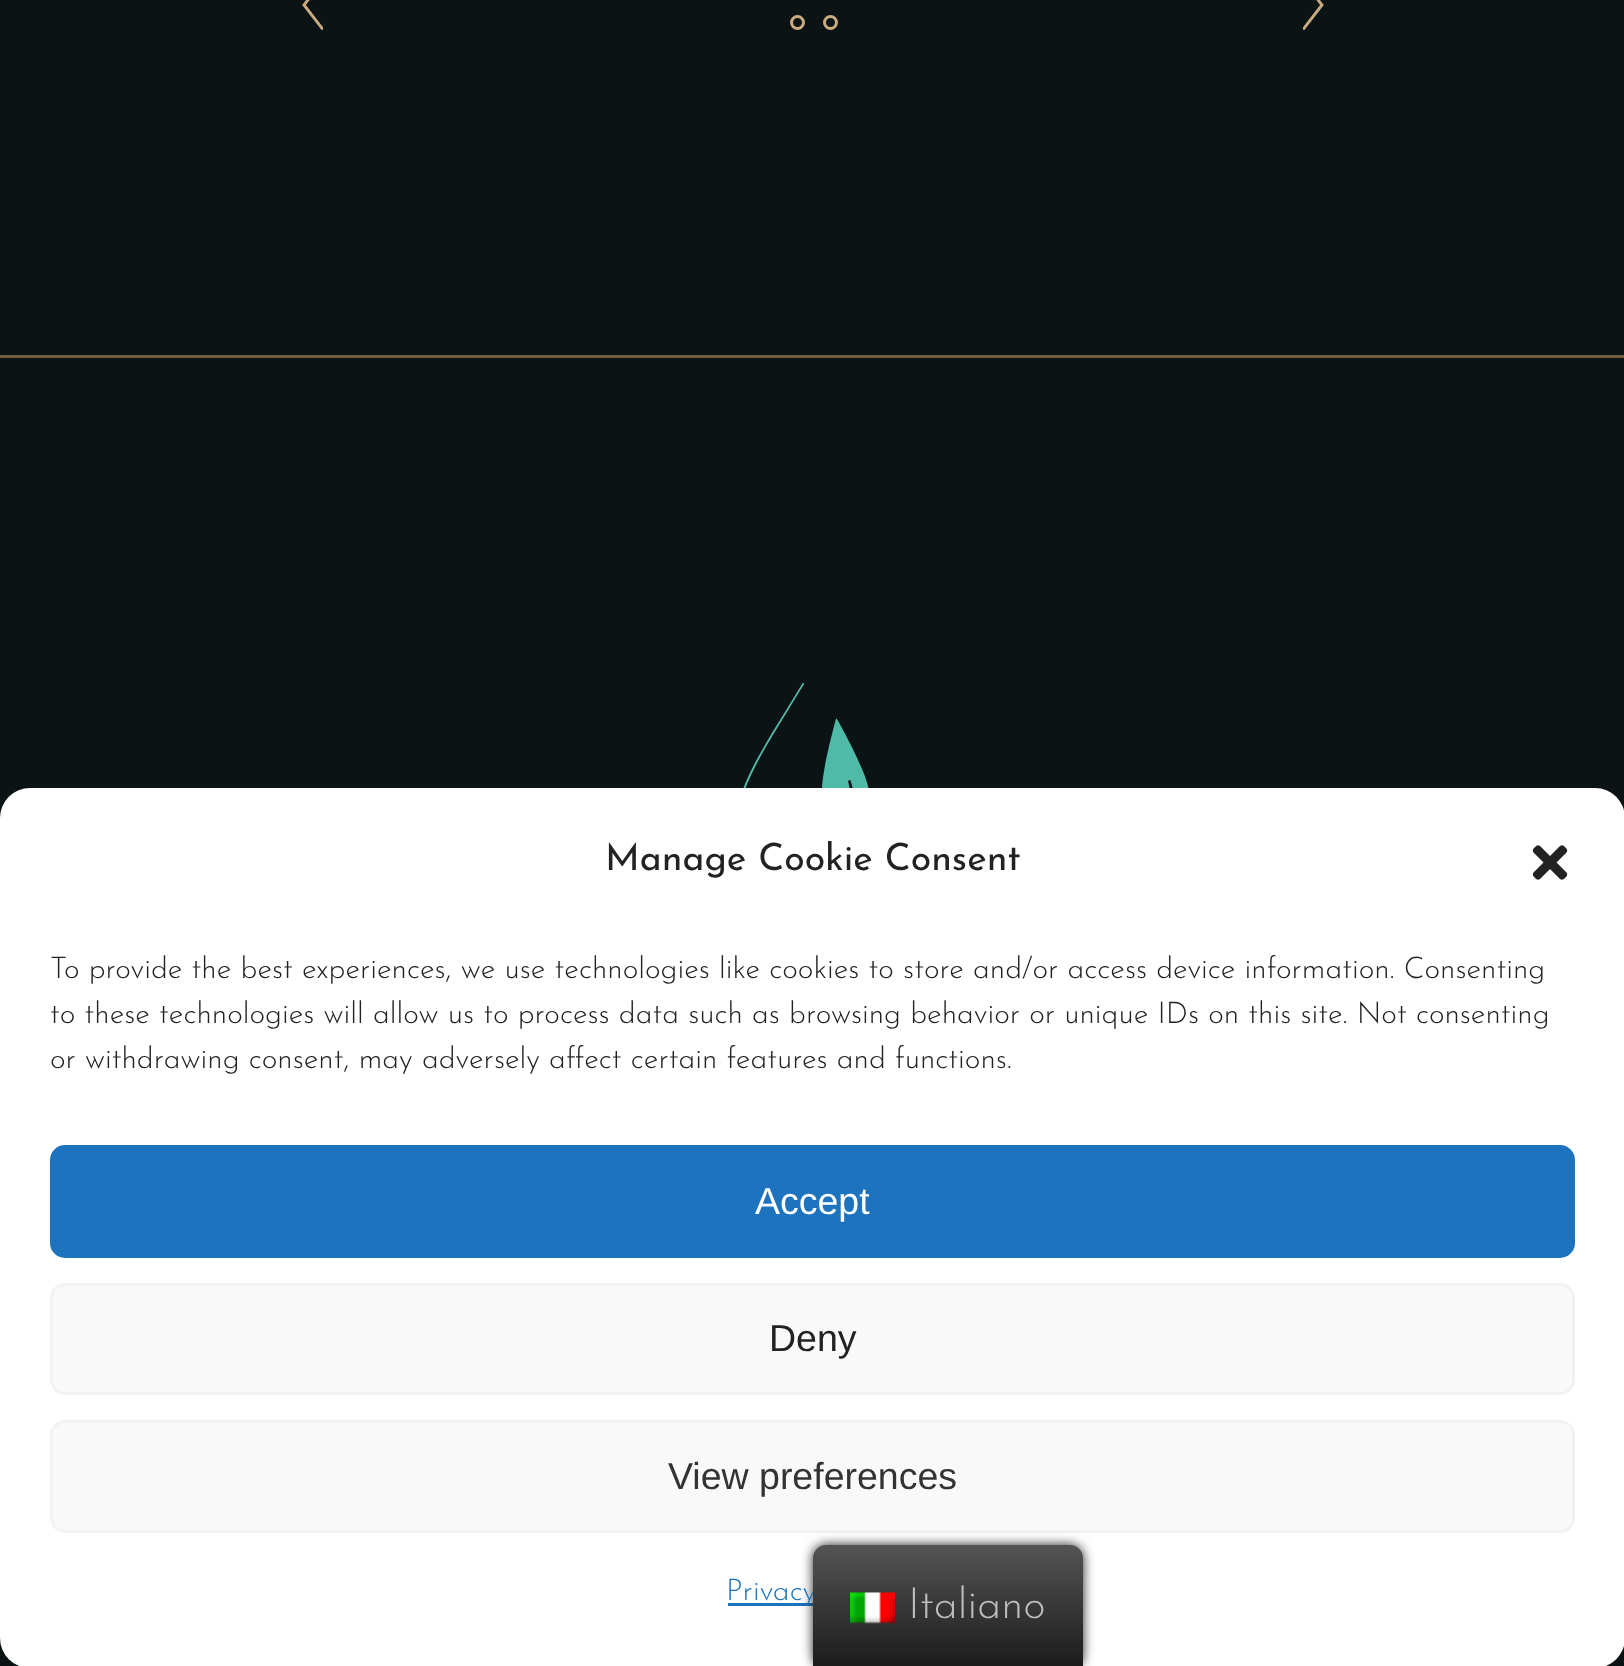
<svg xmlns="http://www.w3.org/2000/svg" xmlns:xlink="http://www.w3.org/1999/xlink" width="1624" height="1666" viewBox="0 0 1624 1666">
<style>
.cls-1{font:37.5px Josefin Sans;fill:#222222}
.cls-2{font:300 30px Josefin Sans;fill:#222222}
.cls-3{font:37.5px Liberation Sans;fill:#ffffff}
.cls-4{font:37.5px Liberation Sans;fill:#222222}
.cls-5{font:37.5px Liberation Sans;fill:#333333}
.cls-6{font:300 30px Josefin Sans;fill:#1e73be}
.cls-7{font:300 43px Josefin Sans;fill:#bdbdbd}
</style>
<defs>
<clipPath id="clip1"><rect x="288" y="0" width="35" height="30"/></clipPath>
<clipPath id="clip2"><rect x="1303" y="0" width="35" height="30"/></clipPath>
<linearGradient id="g1" gradientUnits="userSpaceOnUse" x1="948" y1="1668" x2="948" y2="1545"><stop offset="0" stop-color="#1b1b1b"/><stop offset="1" stop-color="#545454"/></linearGradient>
</defs>
<rect width="100%" height="100%" fill="#0b1315"/>
<g clip-path="url(#clip1)">
<path fill="none" stroke="#c9ab81" stroke-width="2.9" d="M323 29.5L304 5L323-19.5"/>
</g>
<circle fill="none" stroke="#c9ab81" stroke-width="3" cx="797.5" cy="22.5" r="6"/>
<circle fill="none" stroke="#c9ab81" stroke-width="3" cx="830.5" cy="22.5" r="6"/>
<g clip-path="url(#clip2)">
<path fill="none" stroke="#c9ab81" stroke-width="2.9" d="M1303 29.5L1322 5L1303-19.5"/>
</g>
<rect fill="#715b3e" x="0" y="355" width="1624" height="3"/>
<image xlink:href="image0.png" x="743" y="683" width="126" height="105"/>
<rect fill="#ffffff" x="0" y="788" width="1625" height="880" rx="30"/>
<image xlink:href="image1.png" x="1532" y="845" width="36" height="35"/>
<rect fill="#1e73be" stroke="#1e73be" stroke-width="3" x="51.5" y="1146.5" width="1522" height="110" rx="13.5"/>
<rect fill="#f9f9f9" stroke="#f2f2f2" stroke-width="3" x="51.5" y="1284.5" width="1522" height="109" rx="13.5"/>
<rect fill="#f9f9f9" stroke="#f2f2f2" stroke-width="3" x="51.5" y="1421.5" width="1522" height="110" rx="13.5"/>
<rect fill="#1e73be" x="728" y="1603" width="85" height="3"/>
<rect fill="#212121" filter="blur(6px)" x="813" y="1545" width="270" height="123" rx="13"/>
<text class="cls-1" x="605" y="870">Manage Cookie Consent</text>
<text class="cls-2"><tspan x="50" y="978">To provide the best experiences, we use technologies like cookies to store and/or access device information. Consenting</tspan><tspan x="50" y="1023">to these technologies will allow us to process data such as browsing behavior or unique IDs on this site. Not consenting</tspan><tspan x="50" y="1068">or withdrawing consent, may adversely affect certain features and functions.</tspan></text>
<text class="cls-3" x="755" y="1214">Accept</text>
<text class="cls-4" x="769" y="1351">Deny</text>
<text class="cls-5" x="668" y="1489">View preferences</text>
<text class="cls-6" x="726" y="1600">Privacy</text>
<path fill="url(#g1)" d="M826 1545H1070C1077 1545 1083 1551 1083 1558V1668H813V1558C813 1551 819 1545 826 1545Z"/>
<image xlink:href="image2.png" x="850" y="1592" width="45" height="32"/>
<text class="cls-7" x="908" y="1618">Italiano</text>
</svg>
